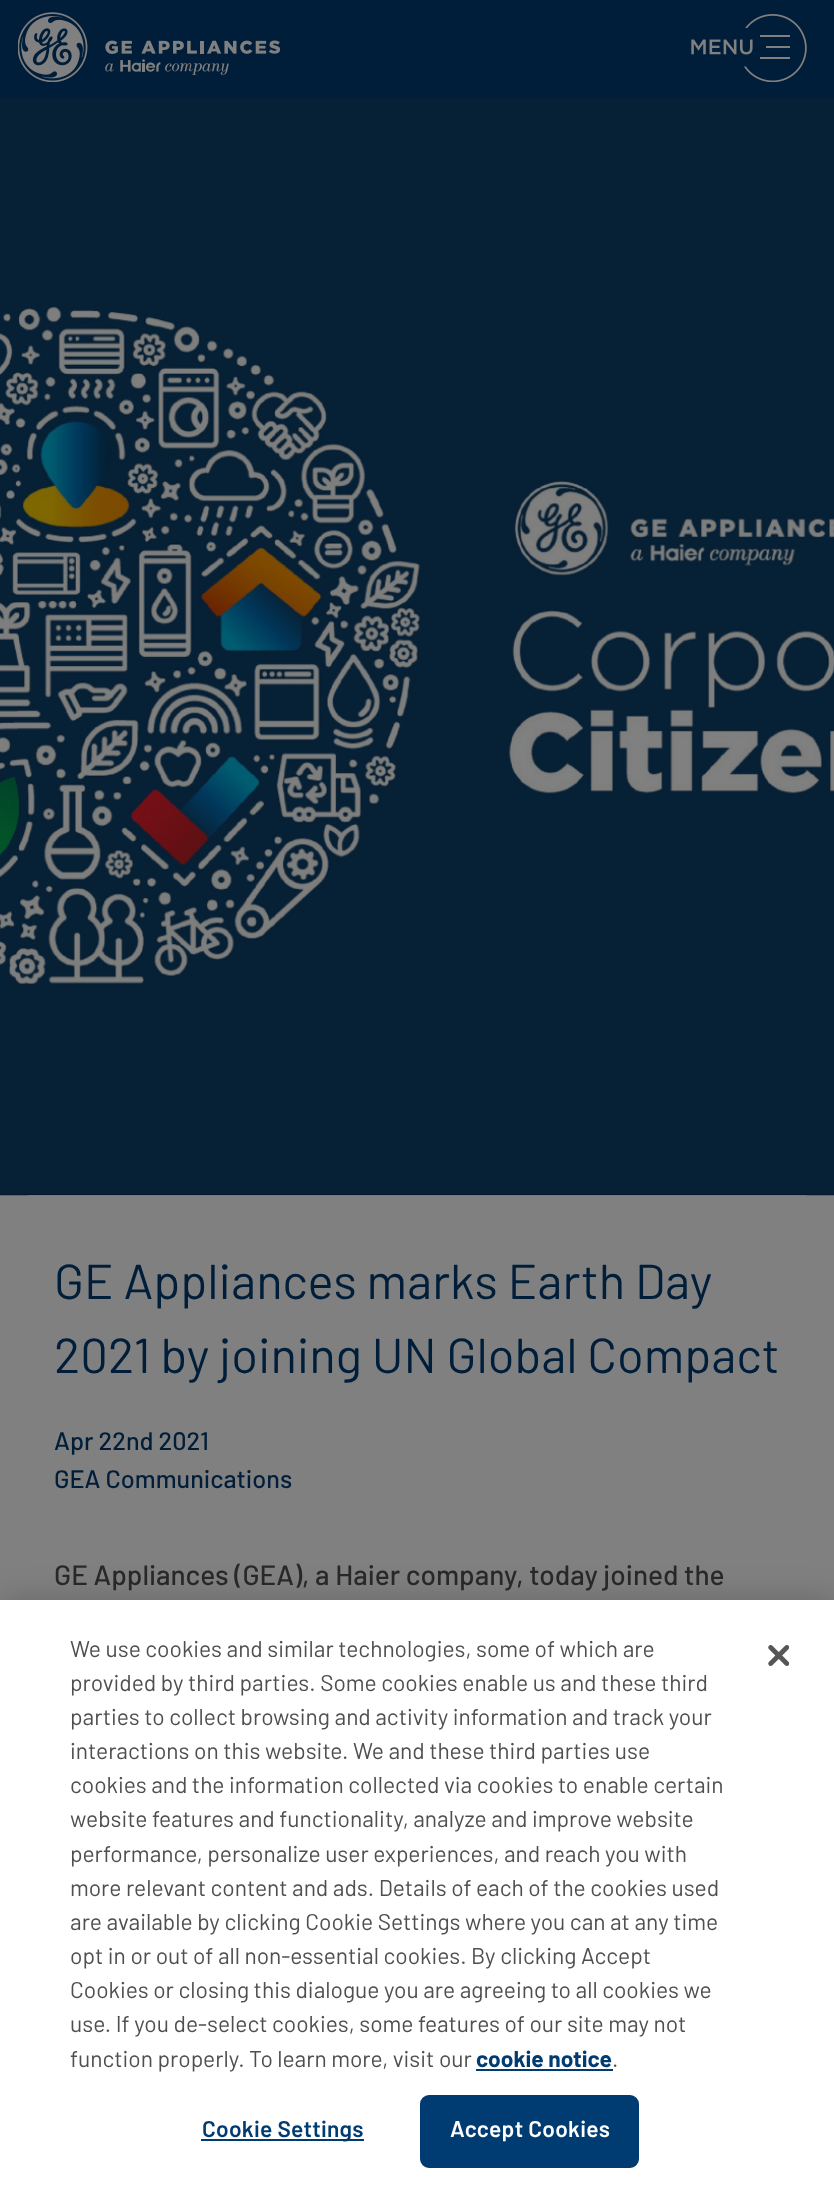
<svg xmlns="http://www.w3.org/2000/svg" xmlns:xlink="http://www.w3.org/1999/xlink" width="834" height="2196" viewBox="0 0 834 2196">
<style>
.cls-1{font:49px Barlow;fill:#001e39}
.cls-2{font:500 25.25px Barlow;fill:#001e39}
.cls-3{font:500 28px Barlow;fill:#282828}
.cls-4{font:22.75px Barlow;fill:#4f4f4f}
.cls-5{font:bold 22.75px Barlow;fill:#003b71}
.cls-6{font:600 22.75px Barlow;letter-spacing:0.25px;fill:#003b71}
.cls-7{font:600 22.75px Barlow;letter-spacing:0.25px;fill:#ffffff}
</style>
<rect width="100%" height="100%" fill="#808080"/>
<rect fill="#001e39" x="0" y="0" width="834" height="98"/>
<image xlink:href="image0.png" x="18" y="12" width="262" height="70"/>
<image xlink:href="image1.png" x="691" y="14" width="116" height="68"/>
<image xlink:href="image2.png" x="0" y="98" width="834" height="1098"/>
<rect fill="#808080" fill-opacity="0.75" x="28" y="1195" width="779" height="1"/>
<rect fill="#000000" fill-opacity="0.2" filter="blur(16px)" x="0" y="1600" width="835" height="596"/>
<rect fill="#ffffff" x="0" y="1600" width="834" height="596"/>
<rect fill="#003b71" x="476" y="2069" width="137" height="2"/>
<rect fill="#003b71" x="201" y="2139" width="163" height="2"/>
<rect fill="#003b71" stroke="#003b71" stroke-width="2" x="421" y="2096" width="217" height="71" rx="8"/>
<image xlink:href="image3.png" x="768" y="1645" width="21" height="21"/>
<text class="cls-1"><tspan x="54" y="1299">GE Appliances marks Earth Day</tspan><tspan x="54" y="1373">2021 by joining UN Global Compact</tspan></text>
<text class="cls-2"><tspan x="54" y="1450">Apr 22nd 2021</tspan><tspan x="54" y="1488">GEA Communications</tspan></text>
<text class="cls-3" x="54" y="1585">GE Appliances (GEA), a Haier company, today joined the</text>
<text class="cls-4"><tspan x="70" y="1657">We use cookies and similar technologies, some of which are</tspan><tspan x="70" y="1691">provided by third parties. Some cookies enable us and these third</tspan><tspan x="70" y="1725">parties to collect browsing and activity information and track your</tspan><tspan x="70" y="1759">interactions on this website. We and these third parties use</tspan><tspan x="70" y="1793">cookies and the information collected via cookies to enable certain</tspan><tspan x="70" y="1827">website features and functionality, analyze and improve website</tspan><tspan x="70" y="1862">performance, personalize user experiences, and reach you with</tspan><tspan x="70" y="1896">more relevant content and ads. Details of each of the cookies used</tspan><tspan x="70" y="1930">are available by clicking Cookie Settings where you can at any time</tspan><tspan x="70" y="1964">opt in or out of all non-essential cookies. By clicking Accept</tspan><tspan x="70" y="1998">Cookies or closing this dialogue you are agreeing to all cookies we</tspan><tspan x="70" y="2032">use. If you de-select cookies, some features of our site may not</tspan><tspan x="70" y="2067">function properly. To learn more, visit our</tspan></text>
<text class="cls-5" x="476" y="2067">cookie notice</text>
<text class="cls-4" x="612" y="2067">.</text>
<text class="cls-6" x="202" y="2137">Cookie Settings</text>
<text class="cls-7" x="450" y="2137">Accept Cookies</text>
</svg>
